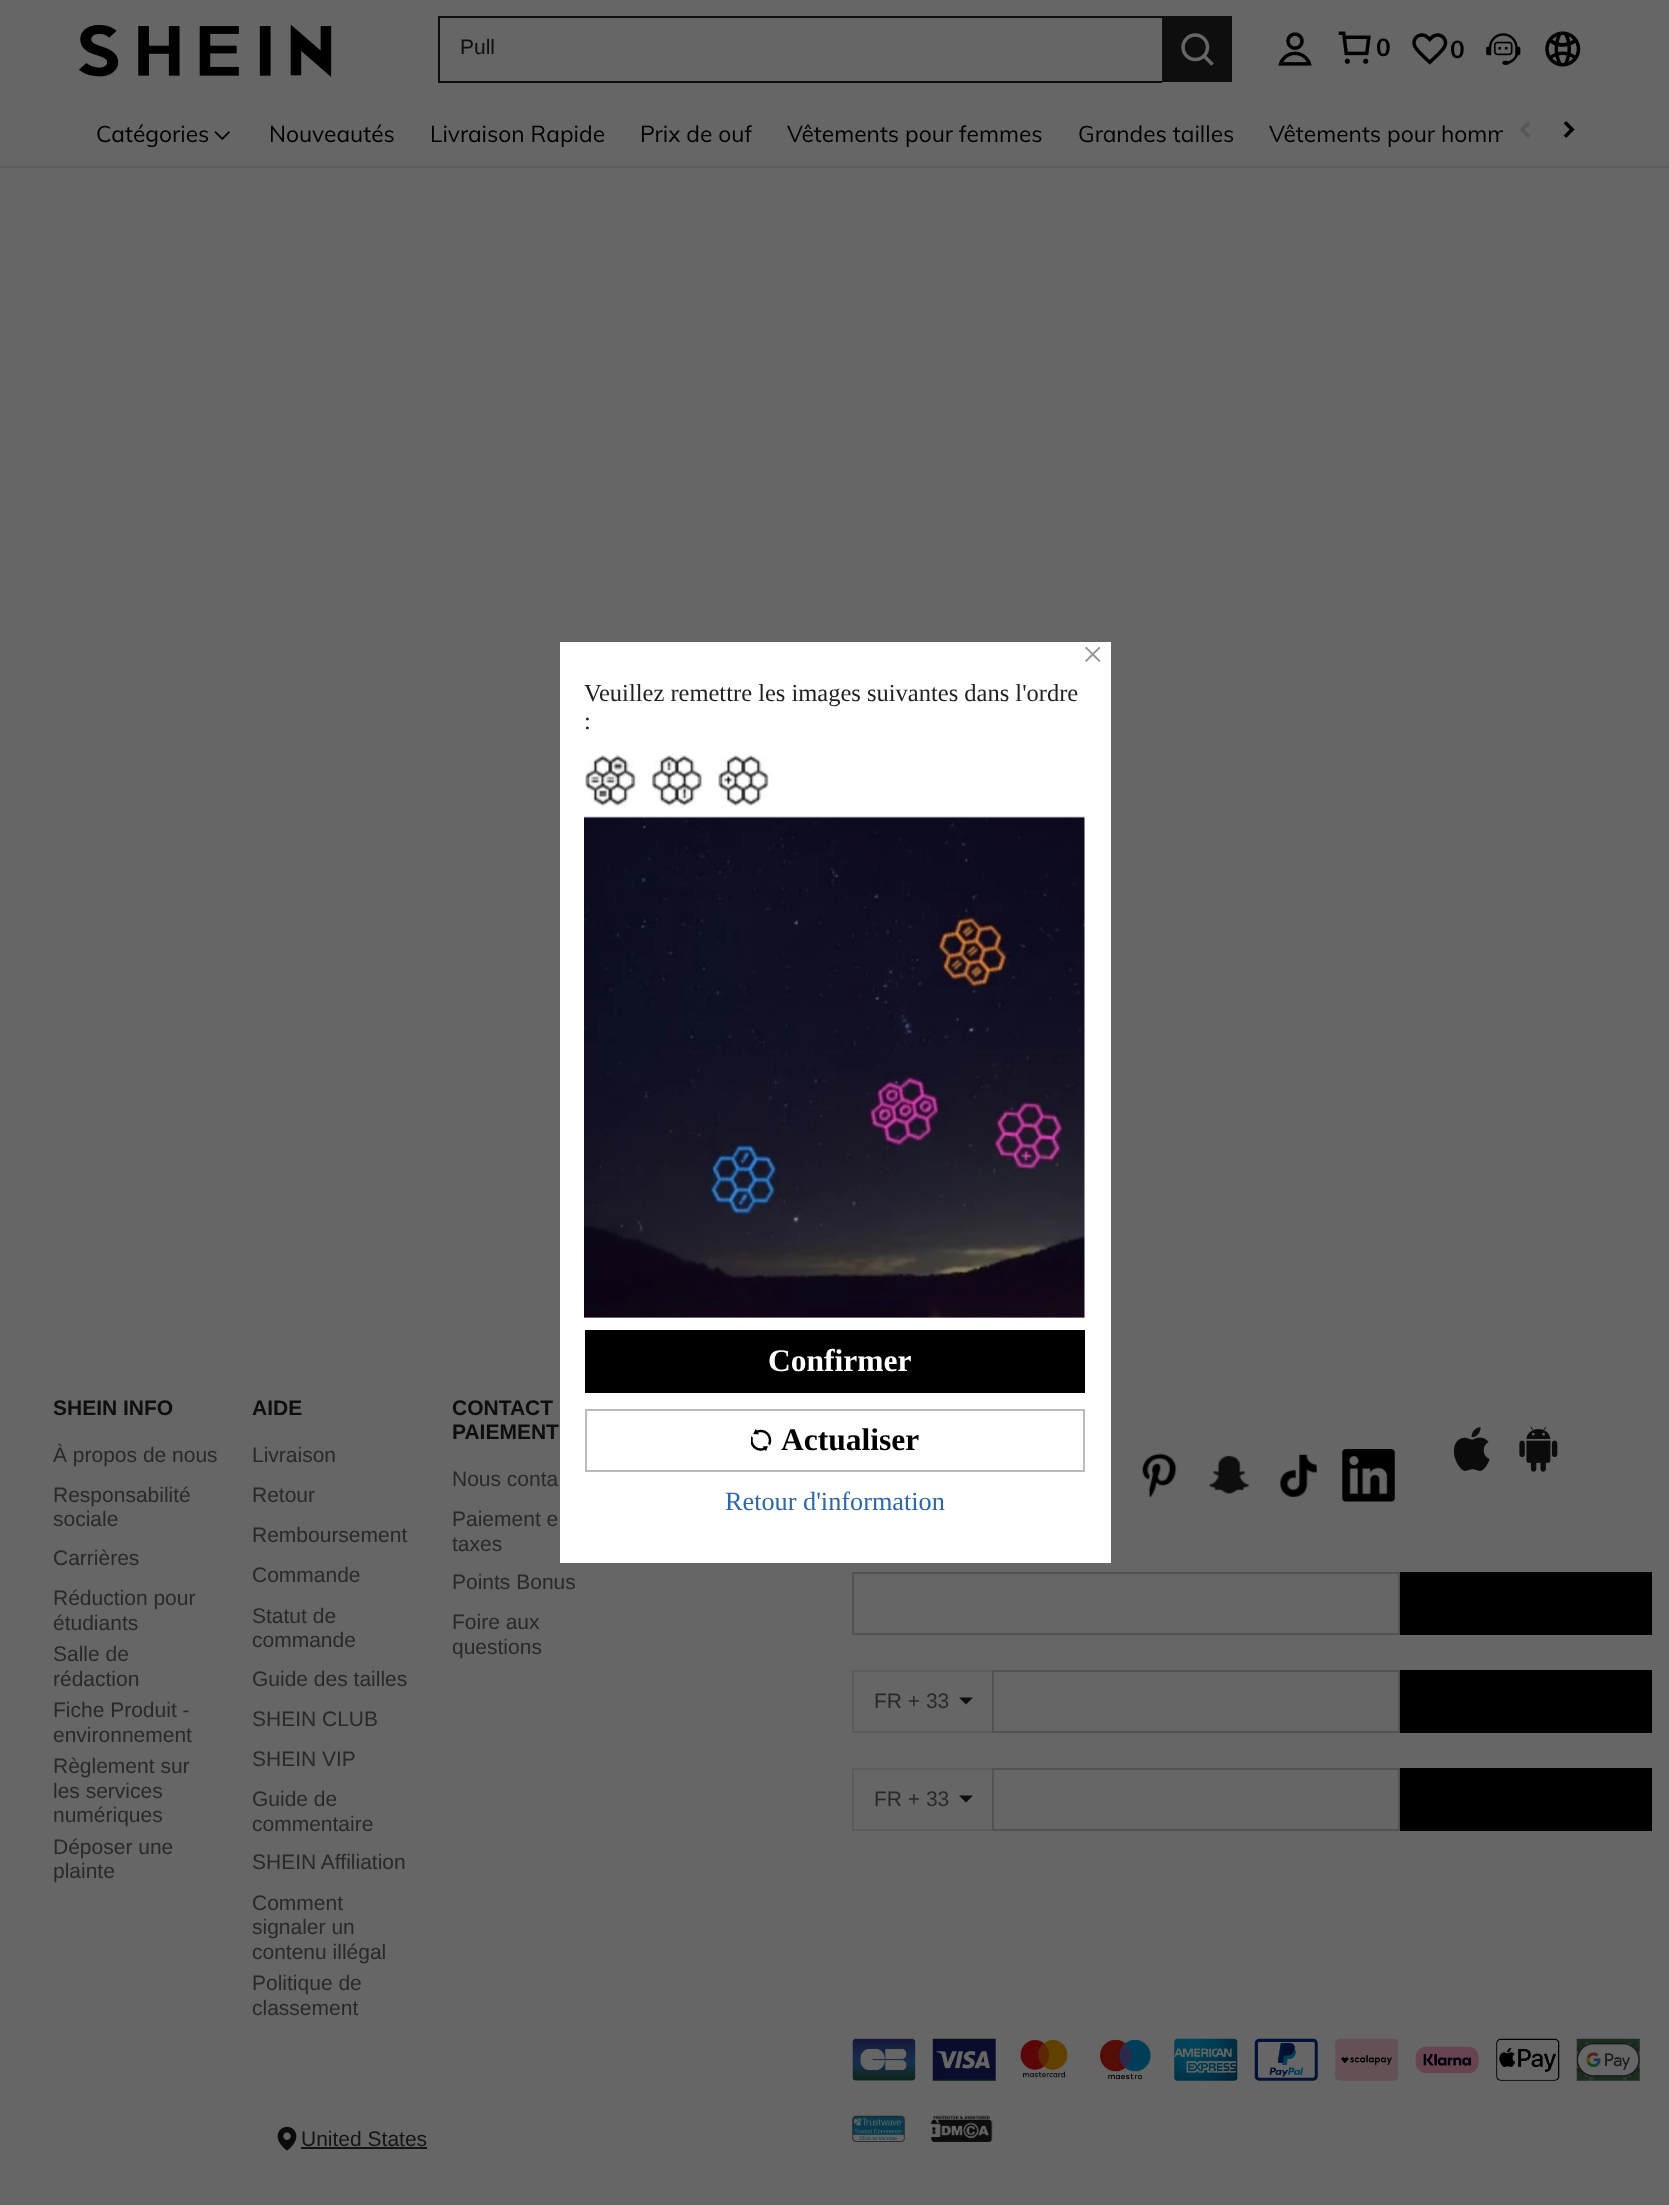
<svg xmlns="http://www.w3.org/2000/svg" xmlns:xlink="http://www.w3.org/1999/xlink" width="1669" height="2205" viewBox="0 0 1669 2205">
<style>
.cls-1{font:21px Liberation Sans;fill:#0e0e0e}
.cls-2{font:bold 24.5px Muli;fill:#000000}
.cls-3{font:22.75px Muli;fill:#000000}
.cls-4{font:bold 21px Liberation Sans;fill:#0e0e0e}
.cls-5{font:21px Liberation Sans;fill:#292929}
.cls-6{font:21px Liberation Sans;fill:#141414}
.cls-7{font:38px Liberation Serif;fill:#959595}
.cls-8{font:24.5px Liberation Serif;fill:#222222}
.cls-9{font:bold 31.5px Liberation Serif;fill:#ffffff}
.cls-10{font:bold 31.5px Liberation Serif;fill:#000000}
.cls-11{font:26.25px Liberation Serif;fill:#2d68a8}
</style>
<rect width="100%" height="100%" fill="#666666"/>
<image xlink:href="image0.png" x="79" y="25" width="253" height="52"/>
<rect fill="#0e0e0e" x="438" y="16" width="724" height="2"/>
<rect fill="#0e0e0e" x="438" y="81" width="724" height="2"/>
<rect fill="#0e0e0e" x="438" y="16" width="2" height="66"/>
<rect fill="#0e0e0e" x="1162" y="16" width="70" height="66"/>
<image xlink:href="image1.png" x="1181" y="33" width="33" height="33"/>
<image xlink:href="image2.png" x="1278" y="32" width="34" height="34"/>
<image xlink:href="image3.png" x="1338" y="31" width="33" height="33"/>
<image xlink:href="image4.png" x="1412" y="33" width="36" height="32"/>
<image xlink:href="image5.png" x="1486" y="33" width="35" height="32"/>
<image xlink:href="image6.png" x="1545" y="31" width="36" height="36"/>
<rect fill="#5c5c5c" x="0" y="166" width="1669" height="2"/>
<image xlink:href="image7.png" x="214" y="131" width="16" height="9"/>
<image xlink:href="image8.png" x="1519" y="121" width="11" height="17"/>
<image xlink:href="image9.png" x="1563" y="121" width="12" height="17"/>
<image xlink:href="image10.png" x="1142" y="1453" width="35" height="44"/>
<image xlink:href="image11.png" x="1209" y="1455" width="41" height="39"/>
<image xlink:href="image12.png" x="1280" y="1454" width="37" height="43"/>
<image xlink:href="image13.png" x="1342" y="1449" width="53" height="53"/>
<image xlink:href="image14.png" x="1453" y="1427" width="37" height="44"/>
<image xlink:href="image15.png" x="1519" y="1426" width="39" height="46"/>
<rect fill="none" stroke="#525252" stroke-width="2" x="853" y="1573" width="546" height="61"/>
<rect fill="#000000" x="1400" y="1572" width="252" height="63"/>
<rect fill="#5c5c5c" x="852" y="1670" width="140" height="2"/>
<rect fill="#5c5c5c" x="852" y="1731" width="140" height="2"/>
<rect fill="#5c5c5c" x="852" y="1670" width="2" height="63"/>
<path fill="#0e0e0e" d="M959 1697.5H973L966 1704.5Z"/>
<rect fill="none" stroke="#525252" stroke-width="2" x="993" y="1671" width="406" height="61"/>
<rect fill="#000000" x="1400" y="1670" width="252" height="63"/>
<rect fill="#5c5c5c" x="852" y="1768" width="140" height="2"/>
<rect fill="#5c5c5c" x="852" y="1829" width="140" height="2"/>
<rect fill="#5c5c5c" x="852" y="1768" width="2" height="63"/>
<path fill="#0e0e0e" d="M959 1795.5H973L966 1802.5Z"/>
<rect fill="none" stroke="#525252" stroke-width="2" x="993" y="1769" width="406" height="61"/>
<rect fill="#000000" x="1400" y="1768" width="252" height="63"/>
<image xlink:href="image16.png" x="852" y="2038" width="64" height="43"/>
<image xlink:href="image17.png" x="932" y="2038" width="64" height="43"/>
<image xlink:href="image18.png" x="1014" y="2039" width="62" height="41"/>
<image xlink:href="image19.png" x="1094" y="2039" width="62" height="41"/>
<image xlink:href="image20.png" x="1174" y="2038" width="64" height="43"/>
<image xlink:href="image21.png" x="1254" y="2038" width="64" height="43"/>
<image xlink:href="image22.png" x="1335" y="2038" width="64" height="43"/>
<image xlink:href="image23.png" x="1415" y="2046" width="64" height="28"/>
<image xlink:href="image24.png" x="1496" y="2038" width="64" height="43"/>
<image xlink:href="image25.png" x="1576" y="2038" width="64" height="43"/>
<image xlink:href="image26.png" x="277" y="2126" width="20" height="25"/>
<rect fill="#141414" x="301" y="2147" width="126" height="2"/>
<image xlink:href="image27.png" x="852" y="2115" width="53" height="27"/>
<image xlink:href="image28.png" x="931" y="2115" width="62" height="27"/>
<rect fill="#ffffff" x="560" y="642" width="551" height="921"/>
<image xlink:href="image29.png" x="585" y="755" width="184" height="52"/>
<image xlink:href="image30.png" x="584" y="816" width="501" height="502"/>
<rect fill="#000000" x="585" y="1330" width="500" height="63"/>
<rect fill="none" stroke="#bbbbbb" stroke-width="2" x="586" y="1410" width="498" height="61"/>
<image xlink:href="image31.png" x="751" y="1429" width="21" height="22"/>
<text class="cls-1" x="460" y="54">Pull</text>
<text class="cls-2" x="1376" y="56">0</text>
<text class="cls-2" x="1450" y="58">0</text>
<text class="cls-3" x="96" y="142">Catégories</text>
<text class="cls-3" x="269" y="142">Nouveautés</text>
<text class="cls-3" x="430" y="142">Livraison Rapide</text>
<text class="cls-3" x="640" y="142">Prix de ouf</text>
<text class="cls-3" x="787" y="142">Vêtements pour femmes</text>
<text class="cls-3" x="1078" y="142">Grandes tailles</text>
<text class="cls-3" x="1269" y="142">Vêtements pour homm</text>
<rect fill="#666666" x="1503" y="130" width="3" height="12"/>
<text class="cls-4" x="53" y="1415">SHEIN INFO</text>
<text class="cls-5"><tspan x="53" y="1462">À propos de nous</tspan><tspan x="53" y="1502">Responsabilité</tspan><tspan x="53" y="1526">sociale</tspan><tspan x="53" y="1565">Carrières</tspan><tspan x="53" y="1605">Réduction pour</tspan><tspan x="53" y="1630">étudiants</tspan><tspan x="53" y="1661">Salle de</tspan><tspan x="53" y="1686">rédaction</tspan><tspan x="53" y="1717">Fiche Produit -</tspan><tspan x="53" y="1742">environnement</tspan><tspan x="53" y="1773">Règlement sur</tspan><tspan x="53" y="1798">les services</tspan><tspan x="53" y="1822">numériques</tspan><tspan x="53" y="1854">Déposer une</tspan><tspan x="53" y="1878">plainte</tspan></text>
<text class="cls-4" x="252" y="1415">AIDE</text>
<text class="cls-5"><tspan x="252" y="1462">Livraison</tspan><tspan x="252" y="1502">Retour</tspan><tspan x="252" y="1542">Remboursement</tspan><tspan x="252" y="1582">Commande</tspan><tspan x="252" y="1623">Statut de</tspan><tspan x="252" y="1647">commande</tspan><tspan x="252" y="1686">Guide des tailles</tspan><tspan x="252" y="1726">SHEIN CLUB</tspan><tspan x="252" y="1766">SHEIN VIP</tspan><tspan x="252" y="1806">Guide de</tspan><tspan x="252" y="1831">commentaire</tspan><tspan x="252" y="1869">SHEIN Affiliation</tspan><tspan x="252" y="1910">Comment</tspan><tspan x="252" y="1934">signaler un</tspan><tspan x="252" y="1959">contenu illégal</tspan><tspan x="252" y="1990">Politique de</tspan><tspan x="252" y="2015">classement</tspan></text>
<text class="cls-4"><tspan x="452" y="1415">CONTACT</tspan><tspan x="452" y="1439">PAIEMENT</tspan></text>
<text class="cls-5"><tspan x="452" y="1486">Nous conta</tspan><tspan x="452" y="1526">Paiement e</tspan><tspan x="452" y="1551">taxes</tspan><tspan x="452" y="1589">Points Bonus</tspan><tspan x="452" y="1629">Foire aux</tspan><tspan x="452" y="1654">questions</tspan></text>
<text class="cls-5" x="874" y="1708">FR + 33</text>
<text class="cls-5" x="874" y="1806">FR + 33</text>
<text class="cls-6" x="301" y="2146">United States</text>
<text class="cls-7" x="1082" y="667">×</text>
<text class="cls-8"><tspan x="584" y="701">Veuillez remettre les images suivantes dans l'ordre</tspan><tspan x="584" y="729">:</tspan></text>
<text class="cls-9" x="768" y="1371">Confirmer</text>
<text class="cls-10" x="781" y="1450">Actualiser</text>
<text class="cls-11" x="725" y="1510">Retour d'information</text>
</svg>
